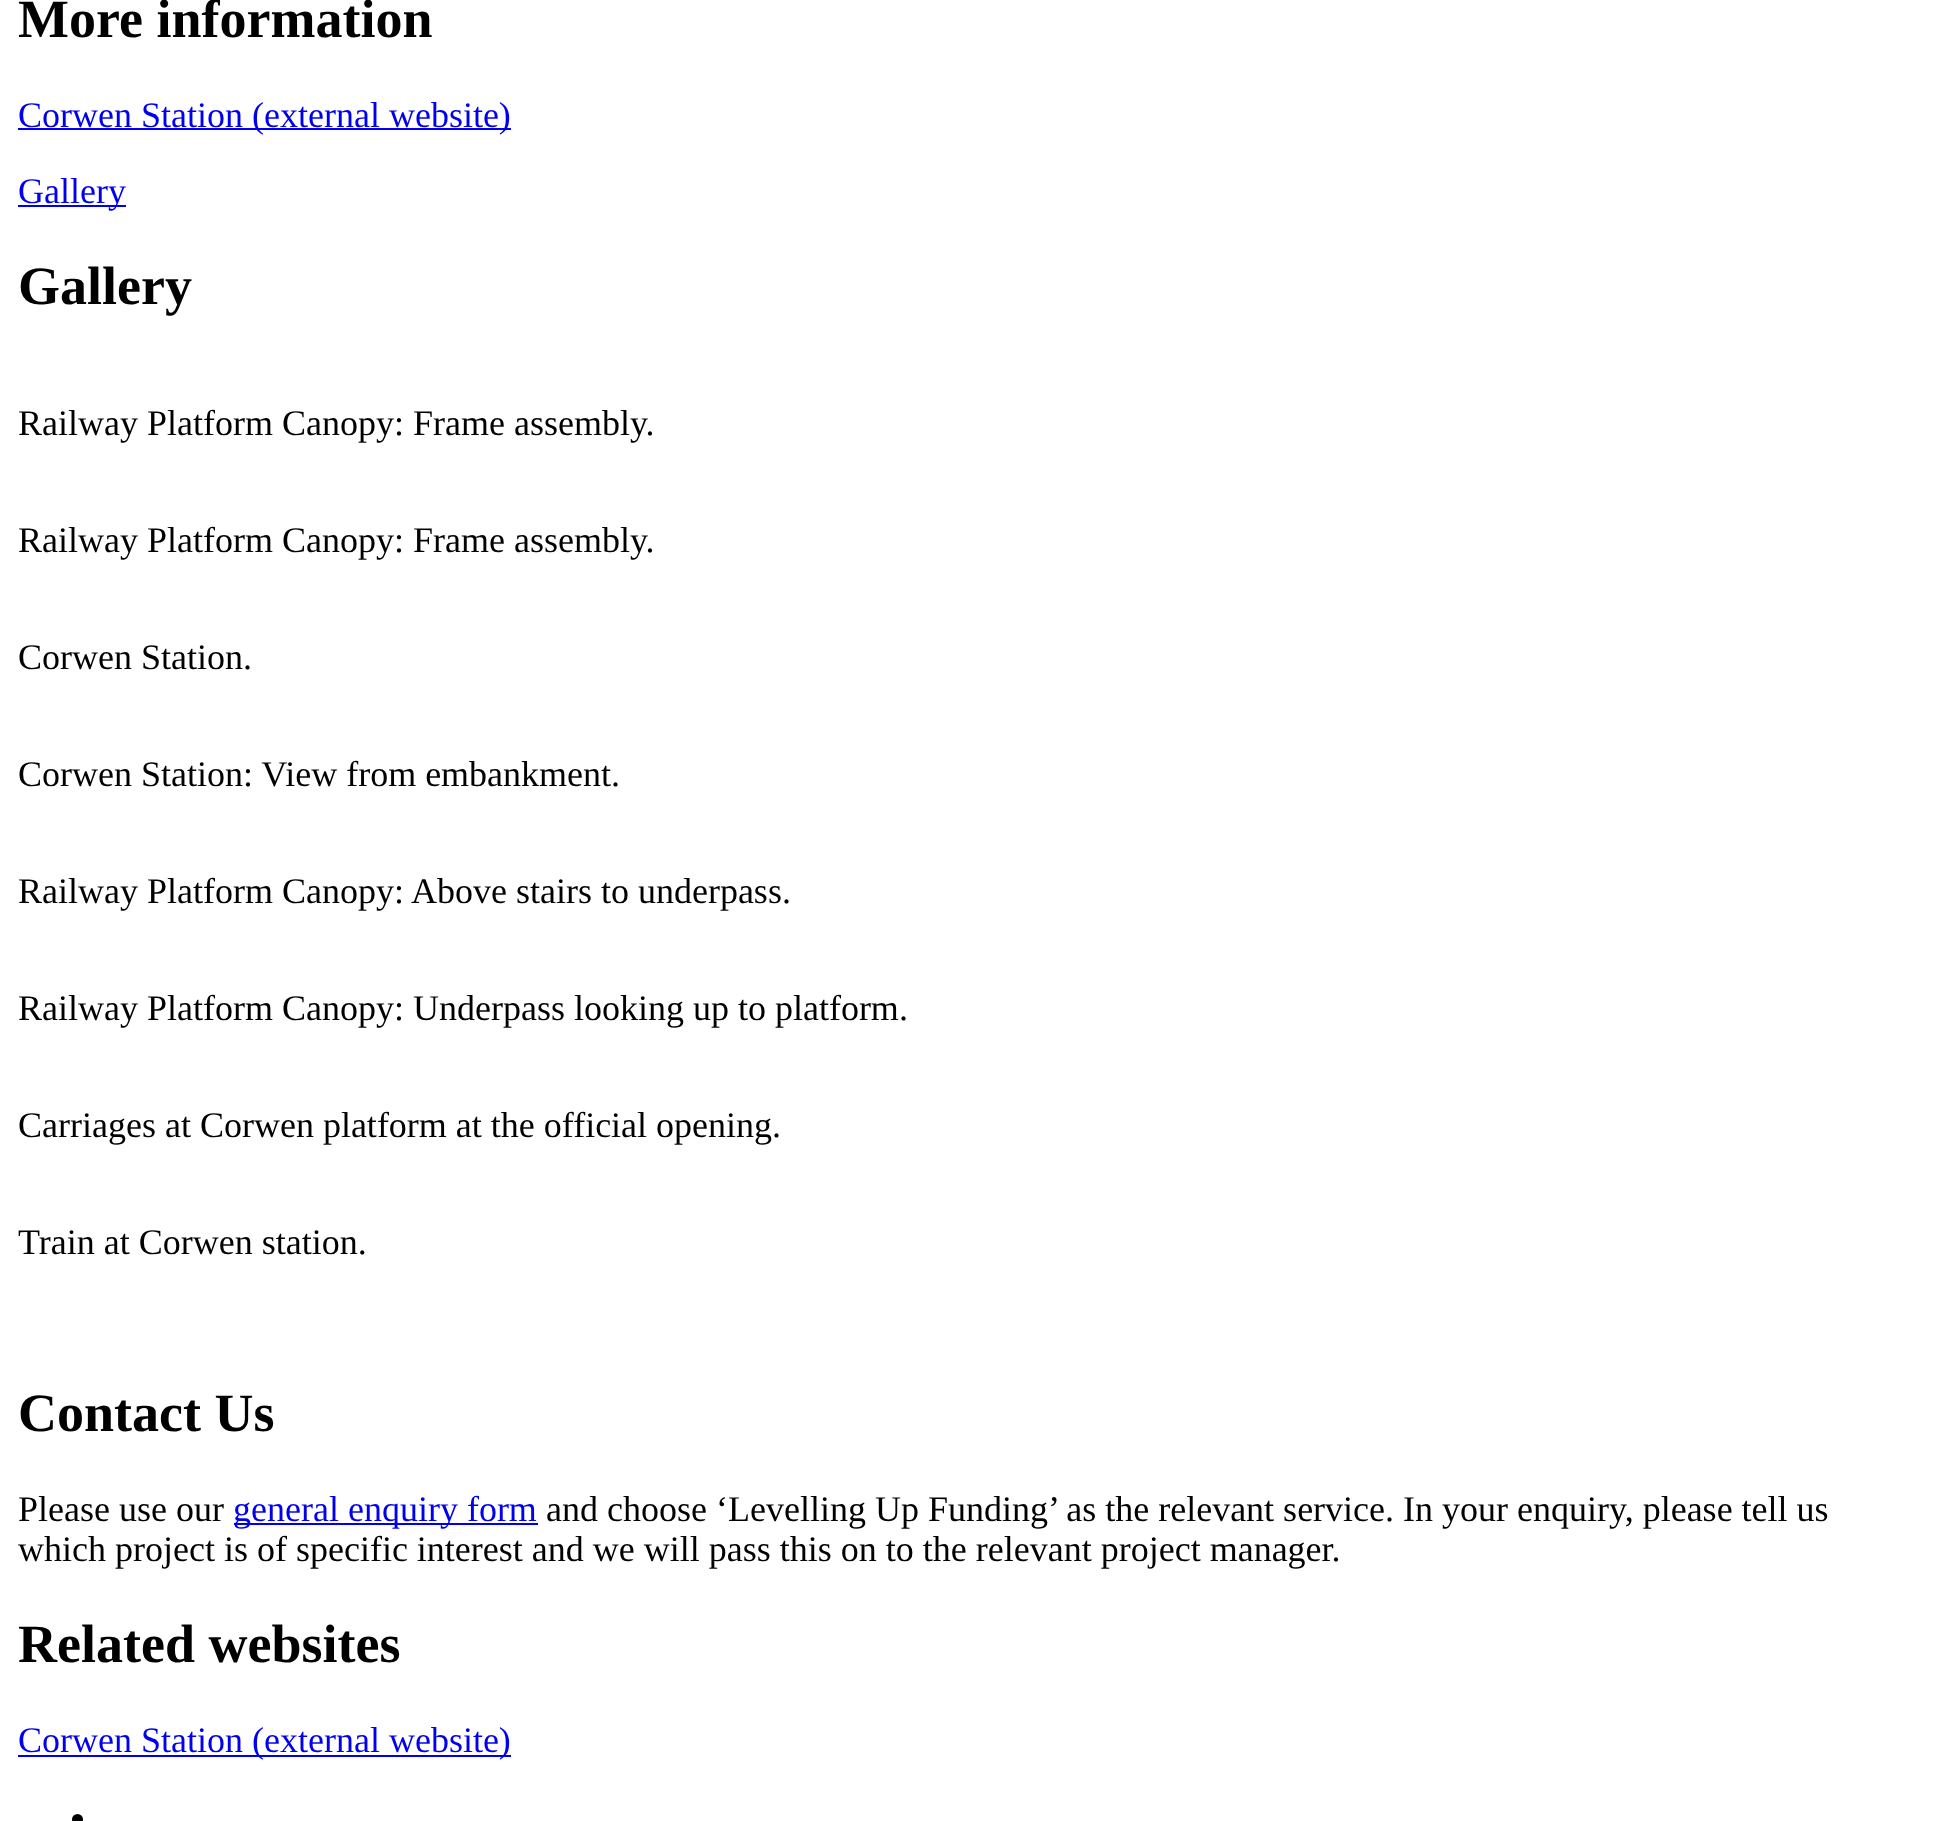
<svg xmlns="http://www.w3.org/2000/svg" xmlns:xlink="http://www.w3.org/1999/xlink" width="1940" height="1821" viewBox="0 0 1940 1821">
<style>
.cls-1{font:bold 54px Liberation Serif;fill:#000000}
.cls-2{font:36px Liberation Serif;fill:#0000ee}
.cls-3{font:36px Liberation Serif;fill:#000000}
</style>
<rect width="100%" height="100%" fill="#ffffff"/>
<rect fill="#0000ee" x="18" y="128" width="493" height="2"/>
<rect fill="#0000ee" x="18" y="205" width="108" height="2"/>
<rect fill="#0000ee" x="234" y="1523" width="304" height="2"/>
<rect fill="#0000ee" x="18" y="1755" width="493" height="2"/>
<circle fill="#000000" cx="77.5" cy="1819.5" r="5.5"/>
<text class="cls-1" x="18" y="37">More information</text>
<text class="cls-2" x="18" y="127">Corwen Station (external website)</text>
<text class="cls-2" x="18" y="203">Gallery</text>
<text class="cls-1" x="18" y="304">Gallery</text>
<text class="cls-3" x="18" y="435">Railway Platform Canopy: Frame assembly.</text>
<text class="cls-3" x="18" y="552">Railway Platform Canopy: Frame assembly.</text>
<text class="cls-3" x="18" y="669">Corwen Station.</text>
<text class="cls-3" x="18" y="786">Corwen Station: View from embankment.</text>
<text class="cls-3" x="18" y="903">Railway Platform Canopy: Above stairs to underpass.</text>
<text class="cls-3" x="18" y="1020">Railway Platform Canopy: Underpass looking up to platform.</text>
<text class="cls-3" x="18" y="1137">Carriages at Corwen platform at the official opening.</text>
<text class="cls-3" x="18" y="1254">Train at Corwen station.</text>
<text class="cls-1" x="18" y="1431">Contact Us</text>
<text class="cls-3" x="18" y="1521">Please use our</text>
<text class="cls-2" x="233" y="1521">general enquiry form</text>
<text class="cls-3" x="546" y="1521">and choose ‘Levelling Up Funding’ as the relevant service. In your enquiry, please tell us</text>
<text class="cls-3" x="18" y="1561">which project is of specific interest and we will pass this on to the relevant project manager.</text>
<text class="cls-1" x="18" y="1662">Related websites</text>
<text class="cls-2" x="18" y="1752">Corwen Station (external website)</text>
</svg>
